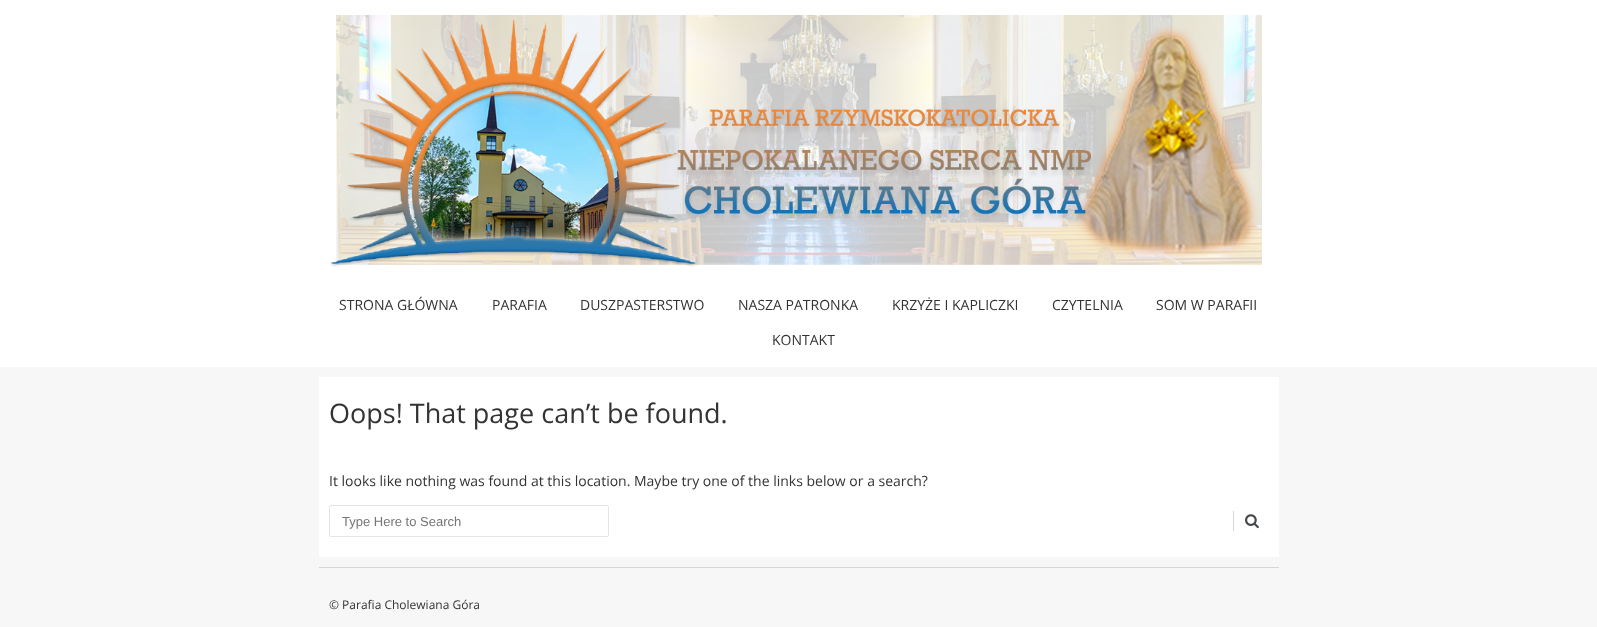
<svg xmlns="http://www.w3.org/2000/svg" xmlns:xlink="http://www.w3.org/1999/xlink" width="1597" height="627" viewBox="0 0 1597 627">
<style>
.cls-1{font:14px Open Sans;fill:#333333}
.cls-2{font:27px Open Sans;fill:#333333}
.cls-3{font:13px Liberation Sans;fill:#757575}
.cls-4{font:12px Open Sans;fill:#333333}
</style>
<rect width="100%" height="100%" fill="#f7f7f7"/>
<rect fill="#ffffff" x="0" y="0" width="1597" height="367"/>
<image xlink:href="image0.png" x="330" y="15" width="932" height="252"/>
<rect fill="#ffffff" x="319" y="377" width="960" height="180"/>
<rect fill="none" stroke="#e5e5e5" x="329.5" y="505.5" width="279" height="31" rx="1.5"/>
<rect fill="#d7d7d7" x="1233" y="511" width="1" height="20"/>
<image xlink:href="image1.png" x="1245" y="514" width="14" height="15"/>
<rect fill="#d6d6d6" x="319" y="567" width="960" height="1"/>
<text class="cls-1" x="339" y="310">STRONA GŁÓWNA</text>
<text class="cls-1" x="492" y="310">PARAFIA</text>
<text class="cls-1" x="580" y="310">DUSZPASTERSTWO</text>
<text class="cls-1" x="738" y="310">NASZA PATRONKA</text>
<text class="cls-1" x="892" y="310">KRZYŻE I KAPLICZKI</text>
<text class="cls-1" x="1052" y="310">CZYTELNIA</text>
<text class="cls-1" x="1156" y="310">SOM W PARAFII</text>
<text class="cls-1" x="772" y="345">KONTAKT</text>
<text class="cls-2" x="329" y="423">Oops! That page can’t be found.</text>
<text class="cls-1" x="329" y="486">It looks like nothing was found at this location. Maybe try one of the links below or a search?</text>
<text class="cls-3" x="342" y="526">Type Here to Search</text>
<text class="cls-4" x="329" y="609">© Parafia Cholewiana Góra</text>
</svg>
